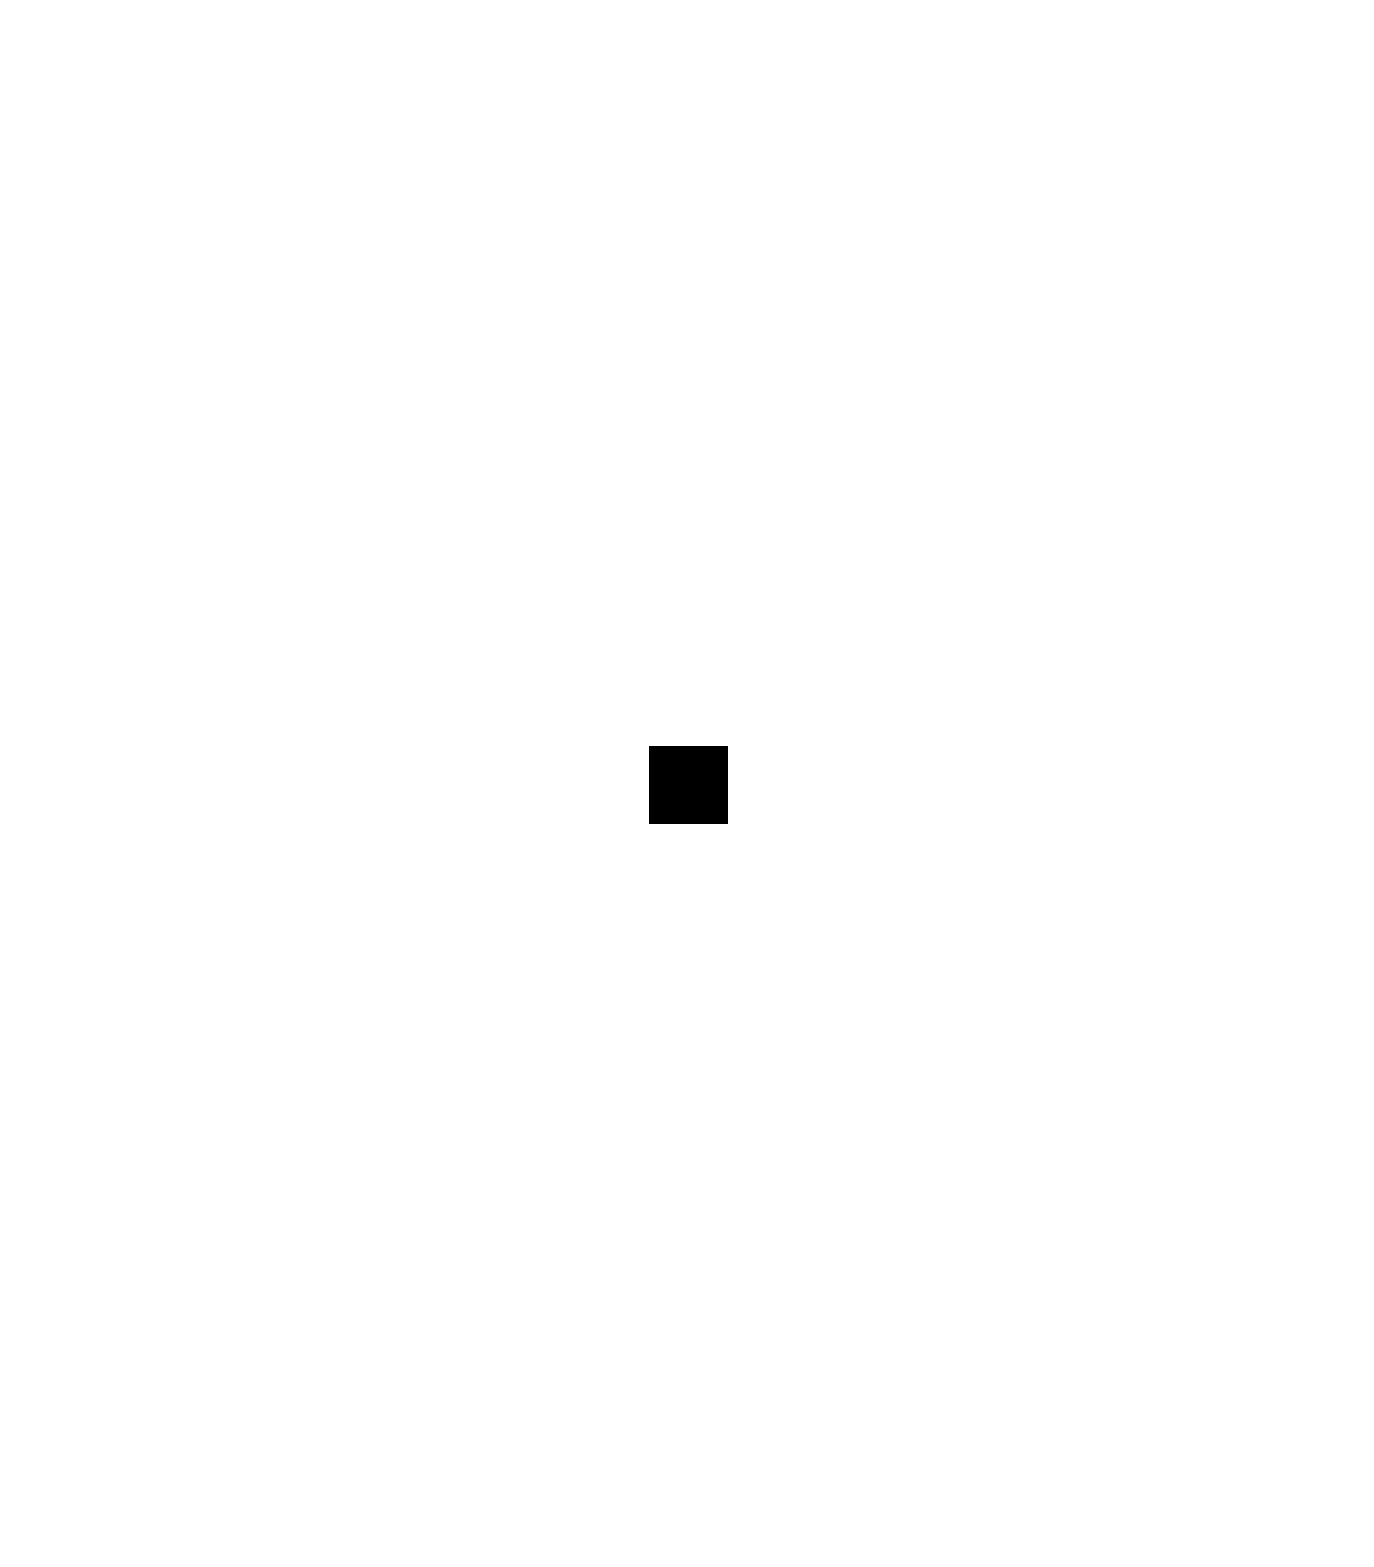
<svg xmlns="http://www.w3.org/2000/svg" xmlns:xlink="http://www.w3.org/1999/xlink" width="1374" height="1567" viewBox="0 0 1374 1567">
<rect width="100%" height="100%" fill="#ffffff"/>
<rect fill="#000000" x="649" y="746" width="79" height="78"/>
</svg>
